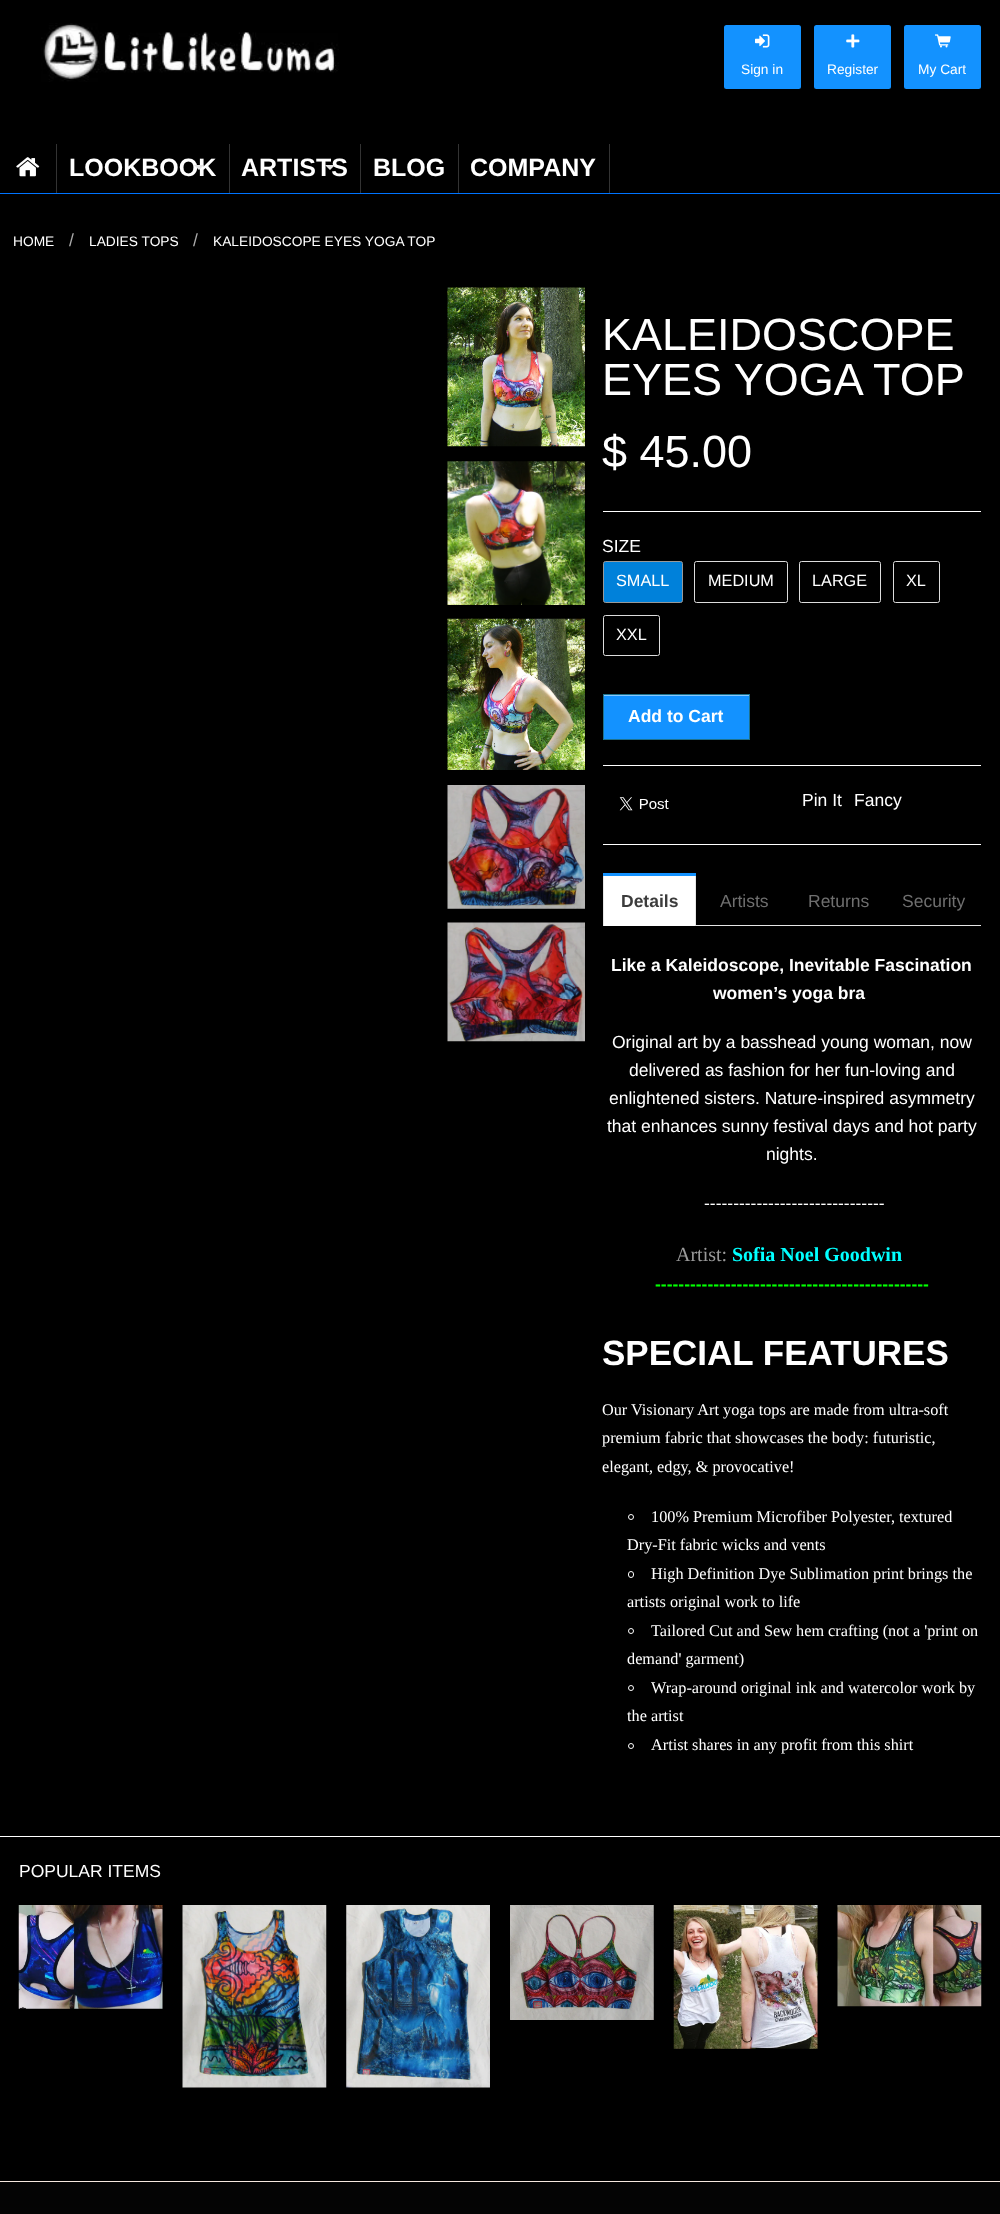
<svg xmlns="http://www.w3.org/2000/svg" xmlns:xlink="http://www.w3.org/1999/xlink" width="1000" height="2214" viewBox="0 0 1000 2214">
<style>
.cls-1{font:13.75px Liberation Sans;fill:#ffffff}
.cls-2{font:bold 25px Liberation Sans;fill:#ffffff}
.cls-3{font:17.5px Liberation Sans;fill:#aaaaaa}
.cls-4{font:45px Liberation Sans;fill:#ffffff}
.cls-5{font:17.5px Liberation Sans;fill:#ffffff}
.cls-6{font:16.25px Liberation Sans;fill:#ffffff}
.cls-7{font:bold 17.5px Liberation Sans;fill:#ffffff}
.cls-8{font:bold 17.5px Liberation Sans;fill:#3c3c3c}
.cls-9{font:17.5px Liberation Sans;fill:#6f6f6f}
.cls-10{font:20px Liberation Serif;fill:#999999}
.cls-11{font:bold 20px Liberation Serif;fill:#00ffff}
.cls-12{font:bold 17.5px Liberation Sans;fill:#00ff00}
.cls-13{font:bold 35px Liberation Sans;fill:#ffffff}
.cls-14{font:16.25px Liberation Serif;fill:#ffffff}
</style>
<rect width="100%" height="100%" fill="#000000"/>
<image xlink:href="image0.png" x="41" y="23" width="298" height="59"/>
<rect fill="#1392ff" x="724" y="25" width="77" height="64" rx="2.5"/>
<image xlink:href="image1.png" x="755" y="34" width="15" height="14"/>
<rect fill="#1392ff" x="814" y="25" width="77" height="64" rx="2.5"/>
<image xlink:href="image2.png" x="846" y="34" width="14" height="14"/>
<rect fill="#1392ff" x="904" y="25" width="77" height="64" rx="2.5"/>
<image xlink:href="image3.png" x="935" y="34" width="16" height="14"/>
<rect fill="#0074ff" x="0" y="193" width="1000" height="1"/>
<image xlink:href="image4.png" x="16" y="157" width="24" height="20"/>
<rect fill="#333333" x="56" y="144" width="1" height="49"/>
<rect fill="#333333" x="229" y="144" width="1" height="49"/>
<rect fill="#333333" x="360" y="144" width="1" height="49"/>
<path fill="#333333" d="M459 192V193H610V144H609V192Z"/>
<rect fill="#000000" x="459" y="192" width="150" height="1"/>
<rect fill="#333333" x="458" y="144" width="1" height="49"/>
<image xlink:href="image5.png" x="447" y="287" width="138" height="160"/>
<image xlink:href="image6.png" x="447" y="461" width="138" height="144"/>
<image xlink:href="image7.png" x="447" y="618" width="138" height="152"/>
<image xlink:href="image8.png" x="447" y="785" width="138" height="124"/>
<image xlink:href="image9.png" x="447" y="922" width="138" height="120"/>
<rect fill="#ffffff" x="603" y="511" width="378" height="1"/>
<rect fill="#0081da" stroke="#999999" x="603.5" y="561.5" width="79" height="41" rx="2"/>
<rect fill="none" stroke="#dddddd" x="694.5" y="561.5" width="93" height="41" rx="2"/>
<rect fill="none" stroke="#dddddd" x="799.5" y="561.5" width="81" height="41" rx="2"/>
<rect fill="none" stroke="#dddddd" x="893.5" y="561.5" width="46" height="41" rx="2"/>
<rect fill="none" stroke="#dddddd" x="603.5" y="615.5" width="56" height="40" rx="2"/>
<rect fill="#1392ff" x="604" y="696" width="145" height="43"/>
<rect fill="#89c9ff" x="604" y="695" width="145" height="1"/>
<rect fill="none" stroke="#1e728c" x="603.5" y="694.5" width="146" height="45"/>
<rect fill="#ffffff" x="603" y="765" width="378" height="1"/>
<rect fill="#ffffff" x="603" y="844" width="378" height="1"/>
<image xlink:href="image10.png" x="619" y="797" width="50" height="14"/>
<rect fill="#e6e6e6" x="696" y="925" width="285" height="1"/>
<rect fill="#1392ff" x="603" y="873" width="93" height="3"/>
<rect fill="#ffffff" x="604" y="876" width="91" height="50"/>
<rect fill="#e6e6e6" x="695" y="876" width="1" height="50"/>
<rect fill="#e6e6e6" x="603" y="876" width="1" height="50"/>
<circle fill="none" stroke="#ffffff" cx="631" cy="1517" r="2.5"/>
<rect fill="none" stroke="#ffffff" x="628.5" y="1571.5" width="5" height="6" rx="2.5"/>
<circle fill="none" stroke="#ffffff" cx="631" cy="1631" r="2.5"/>
<circle fill="none" stroke="#ffffff" cx="631" cy="1688" r="2.5"/>
<circle fill="none" stroke="#ffffff" cx="631" cy="1746" r="2.5"/>
<rect fill="#ffffff" x="0" y="1836" width="1000" height="1"/>
<image xlink:href="image11.png" x="18" y="1905" width="145" height="104"/>
<image xlink:href="image12.png" x="182" y="1905" width="145" height="183"/>
<image xlink:href="image13.png" x="346" y="1905" width="144" height="183"/>
<image xlink:href="image14.png" x="510" y="1905" width="144" height="115"/>
<image xlink:href="image15.png" x="673" y="1905" width="145" height="144"/>
<image xlink:href="image16.png" x="837" y="1905" width="145" height="102"/>
<rect fill="#040404" x="0" y="2182" width="1000" height="32"/>
<rect fill="#f6e8df" x="0" y="2181" width="1000" height="1"/>
<text class="cls-1" x="741" y="74">Sign in</text>
<text class="cls-1" x="827" y="74">Register</text>
<text class="cls-1" x="918" y="74">My Cart</text>
<text class="cls-2" x="69" y="176">LOOKBOOK</text>
<path fill="#e6e6e6" d="M194 165H204L199 170Z"/>
<text class="cls-2" x="241" y="176">ARTISTS</text>
<path fill="#e6e6e6" d="M325 165H335L330 170Z"/>
<text class="cls-2" x="373" y="176">BLOG</text>
<text class="cls-2" x="470" y="176">COMPANY</text>
<text class="cls-1" x="13" y="246">HOME</text>
<text class="cls-3" x="69" y="246">/</text>
<text class="cls-1" x="89" y="246">LADIES TOPS</text>
<text class="cls-3" x="193" y="246">/</text>
<text class="cls-1" x="213" y="246">KALEIDOSCOPE EYES YOGA TOP</text>
<text class="cls-4"><tspan x="602" y="350">KALEIDOSCOPE</tspan><tspan x="602" y="395">EYES YOGA TOP</tspan><tspan x="602" y="467">$ 45.00</tspan></text>
<text class="cls-5" x="602" y="552">SIZE</text>
<text class="cls-6" x="616" y="586">SMALL</text>
<text class="cls-6" x="708" y="586">MEDIUM</text>
<text class="cls-6" x="812" y="586">LARGE</text>
<text class="cls-6" x="906" y="586">XL</text>
<text class="cls-6" x="616" y="640">XXL</text>
<text class="cls-7" x="628" y="722">Add to Cart</text>
<text class="cls-5" x="802" y="806">Pin It</text>
<text class="cls-5" x="854" y="806">Fancy</text>
<text class="cls-8" x="621" y="907">Details</text>
<text class="cls-9" x="720" y="907">Artists</text>
<text class="cls-9" x="808" y="907">Returns</text>
<text class="cls-9" x="902" y="907">Security</text>
<text class="cls-7" x="611" y="971">Like a Kaleidoscope, Inevitable Fascination</text>
<text class="cls-7" x="713" y="999">women’s yoga bra</text>
<text class="cls-5" x="612" y="1048">Original art by a basshead young woman, now</text>
<text class="cls-5" x="629" y="1076">delivered as fashion for her fun-loving and</text>
<text class="cls-5" x="609" y="1104">enlightened sisters. Nature-inspired asymmetry</text>
<text class="cls-5" x="607" y="1132">that enhances sunny festival days and hot party</text>
<text class="cls-5" x="766" y="1160">nights.</text>
<text class="cls-5" x="704" y="1209">-------------------------------</text>
<text class="cls-10" x="676" y="1261">Artist:</text>
<text class="cls-11" x="732" y="1261">Sofia Noel Goodwin</text>
<text class="cls-12" x="655" y="1290">-----------------------------------------------</text>
<text class="cls-13" x="602" y="1365">SPECIAL FEATURES</text>
<text class="cls-14"><tspan x="602" y="1415">Our Visionary Art yoga tops are made from ultra-soft</tspan><tspan x="602" y="1443">premium fabric that showcases the body: futuristic,</tspan><tspan x="602" y="1472">elegant, edgy, &amp; provocative!</tspan></text>
<text class="cls-14" x="651" y="1522">100% Premium Microfiber Polyester, textured</text>
<text class="cls-14" x="627" y="1550">Dry-Fit fabric wicks and vents</text>
<text class="cls-14" x="651" y="1579">High Definition Dye Sublimation print brings the</text>
<text class="cls-14" x="627" y="1607">artists original work to life</text>
<text class="cls-14" x="651" y="1636">Tailored Cut and Sew hem crafting (not a 'print on</text>
<text class="cls-14" x="627" y="1664">demand' garment)</text>
<text class="cls-14" x="651" y="1693">Wrap-around original ink and watercolor work by</text>
<text class="cls-14" x="627" y="1721">the artist</text>
<text class="cls-14" x="651" y="1750">Artist shares in any profit from this shirt</text>
<text class="cls-5" x="19" y="1877">POPULAR ITEMS</text>
</svg>
